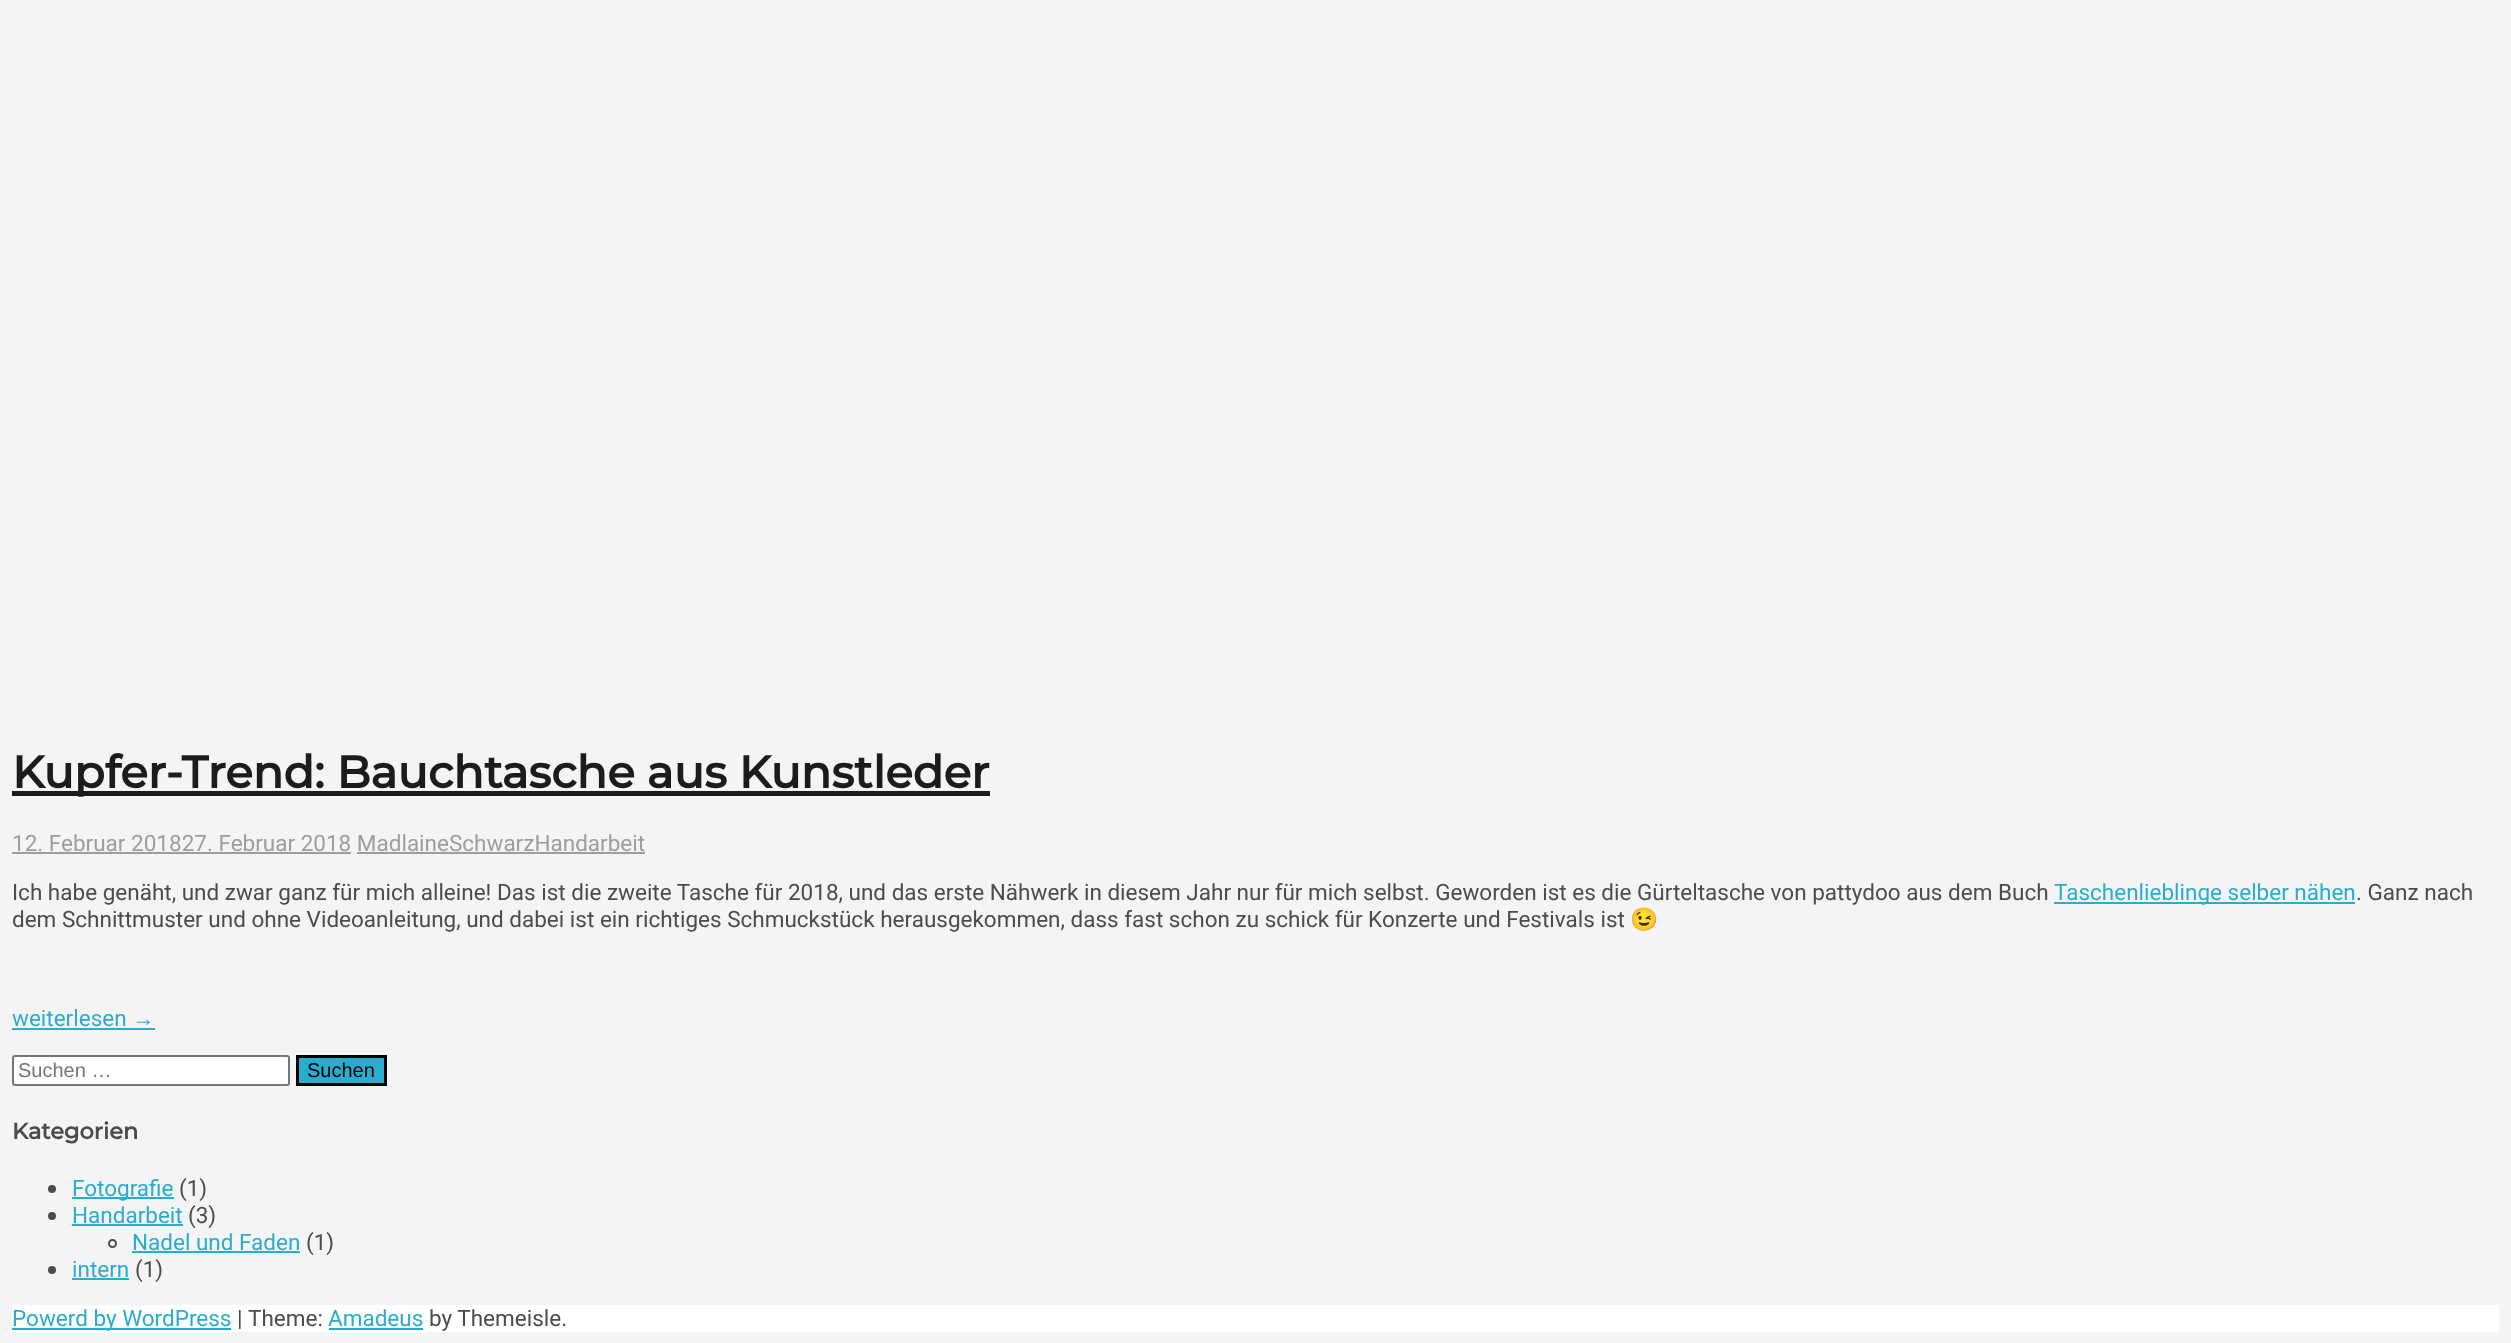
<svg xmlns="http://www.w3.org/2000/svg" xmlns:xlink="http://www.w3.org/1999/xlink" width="2511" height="1343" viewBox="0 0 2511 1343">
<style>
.cls-1{font:bold 45px Montserrat;fill:#1c1c1c}
.cls-2{font:22.5px Roboto;fill:#9d9d9d}
.cls-3{font:22.5px Roboto;fill:#4c4c4c}
.cls-4{font:22.5px Roboto;fill:#29adce}
.cls-5{font:22.5px Noto Color Emoji;fill:#4c4c4c}
.cls-6{font:22.5px Liberation Sans;fill:#29adce}
.cls-7{font:20px Liberation Sans;fill:#757575}
.cls-8{font:20px Liberation Sans;fill:#000000}
.cls-9{font:bold 22.5px Montserrat;fill:#4c4c4c}
</style>
<rect width="100%" height="100%" fill="#f4f4f4"/>
<rect fill="#1c1c1c" x="12" y="791" width="978" height="5"/>
<rect fill="#9d9d9d" x="12" y="852" width="339" height="2"/>
<rect fill="#9d9d9d" x="357" y="852" width="288" height="2"/>
<rect fill="#29adce" x="2054" y="902" width="301" height="2"/>
<rect fill="#29adce" x="12" y="1028" width="143" height="2"/>
<rect fill="#ffffff" stroke="#767676" stroke-width="2" x="13" y="1056" width="276" height="29" rx="2"/>
<rect fill="#29adce" stroke="#000000" stroke-width="3" x="297.5" y="1056.5" width="88" height="28"/>
<circle fill="#4c4c4c" cx="52" cy="1189" r="4"/>
<rect fill="#29adce" x="72" y="1197" width="102" height="2"/>
<circle fill="#4c4c4c" cx="52" cy="1216" r="4"/>
<rect fill="#29adce" x="72" y="1224" width="111" height="2"/>
<circle fill="none" stroke="#4c4c4c" stroke-width="2" cx="112.5" cy="1243.5" r="3.5"/>
<rect fill="#29adce" x="132" y="1251" width="168" height="2"/>
<circle fill="#4c4c4c" cx="52" cy="1270" r="4"/>
<rect fill="#29adce" x="72" y="1278" width="57" height="2"/>
<rect fill="#ffffff" x="12" y="1305" width="2487" height="27"/>
<rect fill="#29adce" x="12" y="1328" width="219" height="2"/>
<rect fill="#29adce" x="329" y="1328" width="94" height="2"/>
<text class="cls-1" x="12" y="788">Kupfer-Trend: Bauchtasche aus Kunstleder</text>
<text class="cls-2" x="12" y="851">12. Februar 201827. Februar 2018 MadlaineSchwarzHandarbeit</text>
<text class="cls-3" x="12" y="900">Ich habe genäht, und zwar ganz für mich alleine! Das ist die zweite Tasche für 2018, und das erste Nähwerk in diesem Jahr nur für mich selbst. Geworden ist es die Gürteltasche von pattydoo aus dem Buch</text>
<text class="cls-4" x="2054" y="900">Taschenlieblinge selber nähen</text>
<text class="cls-3" x="2356" y="900">. Ganz nach</text>
<text class="cls-3" x="12" y="927">dem Schnittmuster und ohne Videoanleitung, und dabei ist ein richtiges Schmuckstück herausgekommen, dass fast schon zu schick für Konzerte und Festivals ist</text>
<text class="cls-5" x="1630" y="927">😉</text>
<text class="cls-4" x="12" y="1026">weiterlesen</text>
<text class="cls-6" x="132" y="1026">→</text>
<text class="cls-7" x="18" y="1077">Suchen …</text>
<text class="cls-8" x="307" y="1077">Suchen</text>
<text class="cls-9" x="12" y="1139">Kategorien</text>
<text class="cls-4" x="72" y="1196">Fotografie</text>
<text class="cls-3" x="179" y="1196">(1)</text>
<text class="cls-4" x="72" y="1223">Handarbeit</text>
<text class="cls-3" x="188" y="1223">(3)</text>
<text class="cls-4" x="132" y="1250">Nadel und Faden</text>
<text class="cls-3" x="306" y="1250">(1)</text>
<text class="cls-4" x="72" y="1277">intern</text>
<text class="cls-3" x="135" y="1277">(1)</text>
<text class="cls-4" x="12" y="1326">Powerd by WordPress</text>
<text class="cls-3" x="237" y="1326">|</text>
<text class="cls-3" x="248" y="1326">Theme:</text>
<text class="cls-4" x="328" y="1326">Amadeus</text>
<text class="cls-3" x="429" y="1326">by Themeisle.</text>
</svg>
